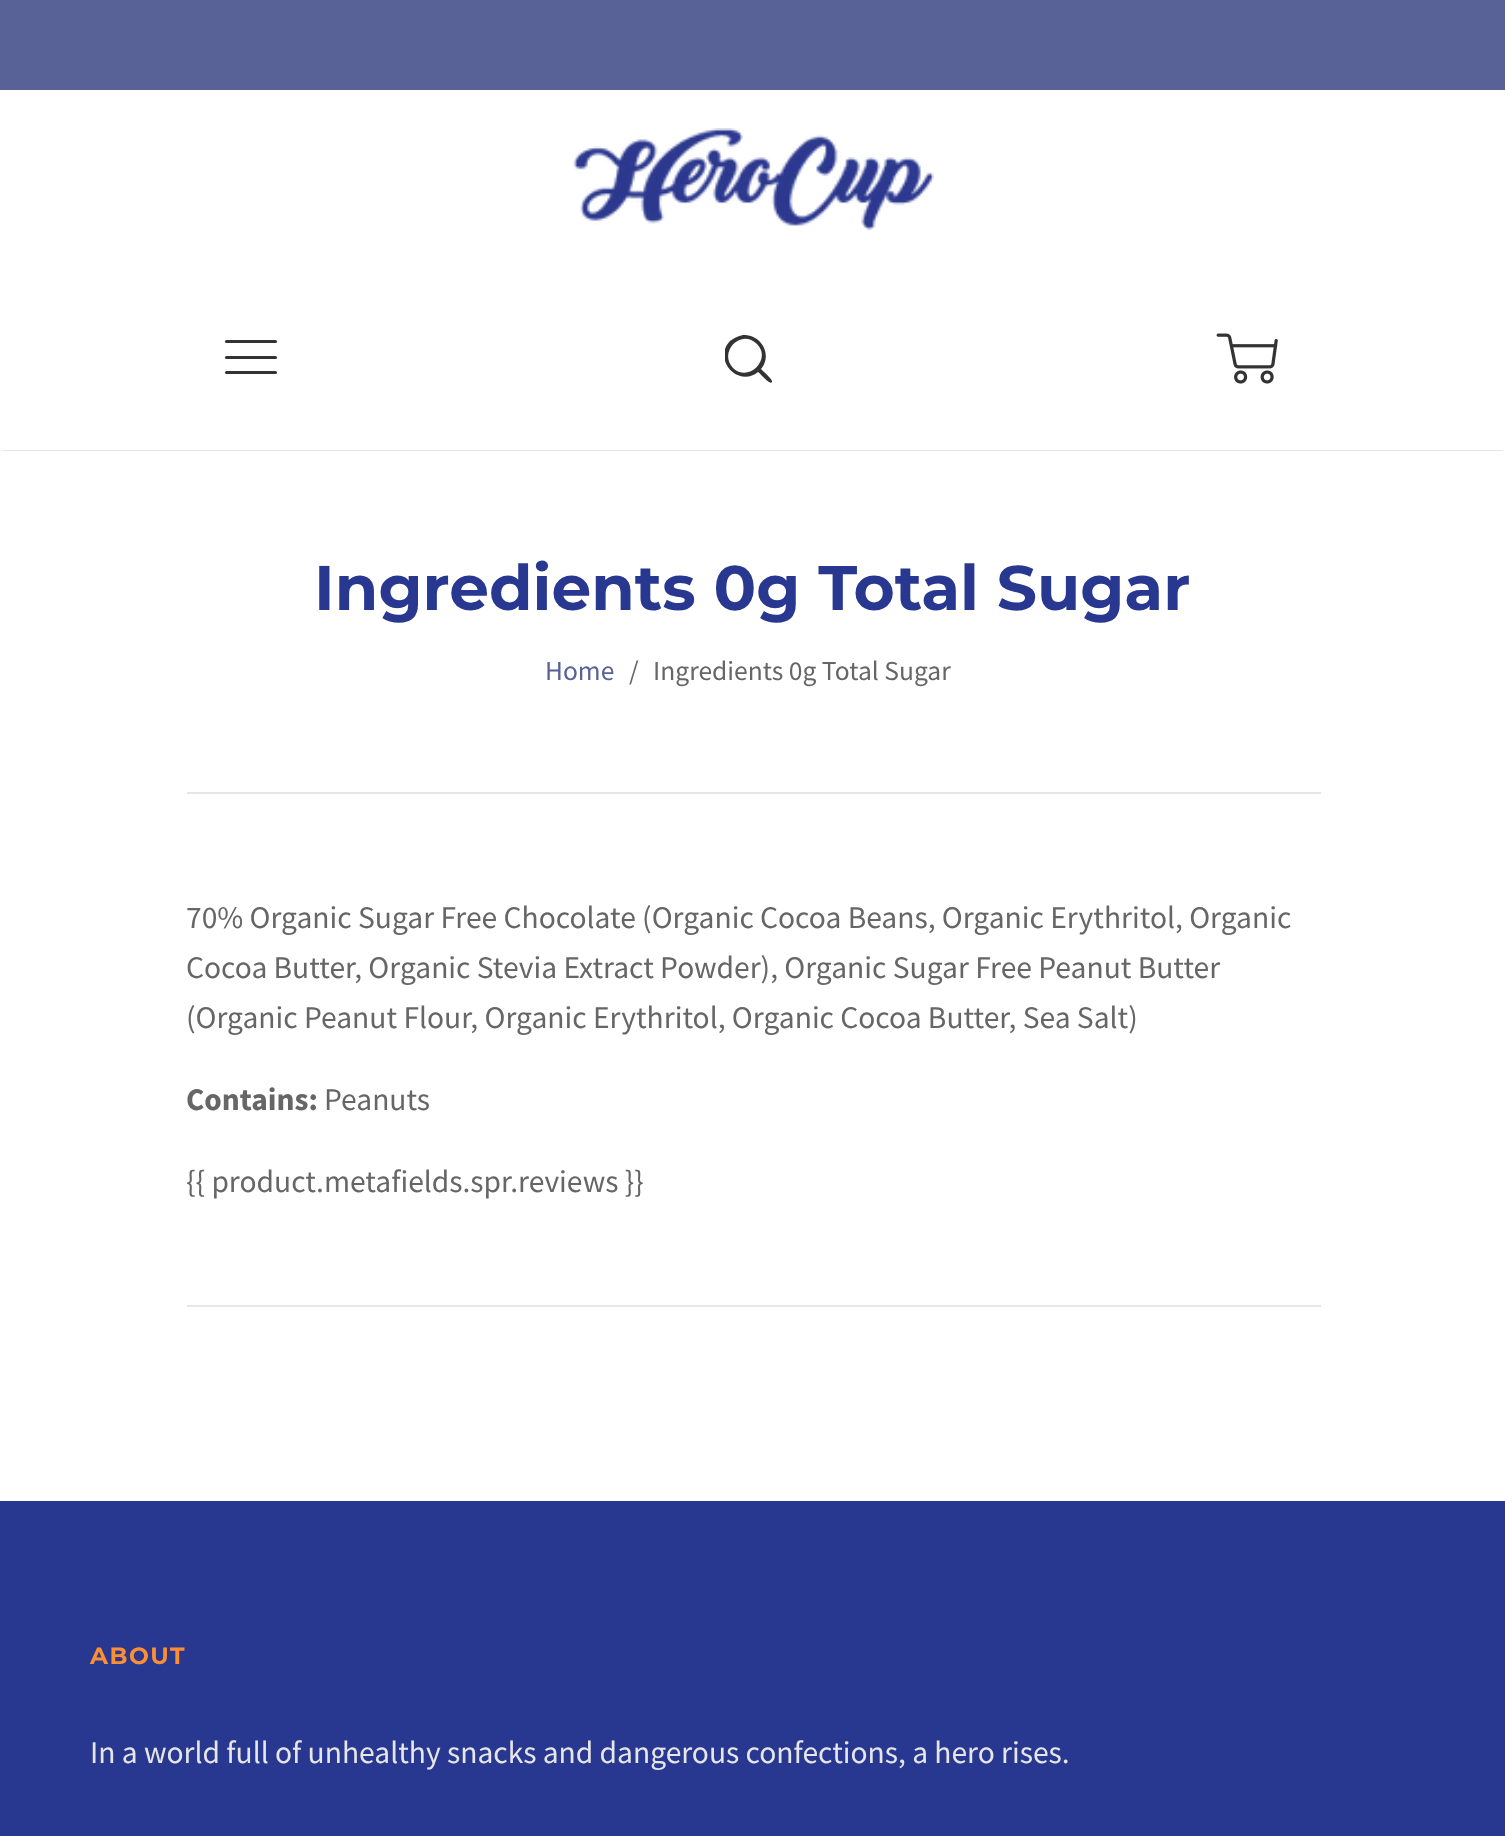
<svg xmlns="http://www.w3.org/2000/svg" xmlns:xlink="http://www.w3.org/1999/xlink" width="1505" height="1836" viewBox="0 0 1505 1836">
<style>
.cls-1{font:bold 63px Montserrat;fill:#283891}
.cls-2{font:27.5px Source Sans Pro;fill:#586297}
.cls-3{font:27.5px Source Sans Pro;fill:#666666}
.cls-4{font:31.5px Source Sans Pro;fill:#666666}
.cls-5{font:bold 31.5px Source Sans Pro;fill:#666666}
.cls-6{font:bold 23.5px Montserrat;letter-spacing:1.5px;fill:#fc8f34}
.cls-7{font:31.5px Source Sans Pro;fill:#e6e6e6}
</style>
<defs>
<clipPath id="clip1"><rect x="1" y="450" width="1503" height="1"/></clipPath>
<clipPath id="clip2"><rect x="725" y="335" width="47" height="48"/></clipPath>
</defs>
<rect width="100%" height="100%" fill="#ffffff"/>
<rect fill="#586297" x="0" y="0" width="1505" height="90"/>
<image xlink:href="image0.png" x="573" y="128" width="361" height="103"/>
<g clip-path="url(#clip1)">
<rect fill="#000000" fill-opacity="0.3" filter="blur(1px)" x="2" y="275" width="1501" height="175"/>
</g>
<rect fill="#333333" x="225" y="340" width="52" height="3" rx="1.5"/>
<rect fill="#333333" x="225" y="356" width="52" height="3" rx="1.5"/>
<rect fill="#333333" x="225" y="371" width="52" height="3" rx="1.5"/>
<g clip-path="url(#clip2)">
<path fill="#333333" d="M772 381C772 379 763 371 761 369C773 355 761 334 743 335C738 336 734 338 730 341C712 360 739 388 758 372C759 372 772 388 772 381ZM757 344C772 359 749 383 733 368C718 352 741 328 757 344Z"/>
</g>
<image xlink:href="image1.png" x="1216" y="333" width="62" height="51"/>
<rect fill="#e6e6e6" x="187" y="792" width="1134" height="2"/>
<rect fill="#e6e6e6" x="187" y="1305" width="1134" height="2"/>
<rect fill="#283891" x="0" y="1501" width="1505" height="335"/>
<text class="cls-1" x="314" y="610">Ingredients 0g Total Sugar</text>
<text class="cls-2" x="545" y="680">Home</text>
<text class="cls-3" x="629" y="680">/</text>
<text class="cls-3" x="653" y="680">Ingredients 0g Total Sugar</text>
<text class="cls-4"><tspan x="186" y="928">70% Organic Sugar Free Chocolate (Organic Cocoa Beans, Organic Erythritol, Organic</tspan><tspan x="186" y="978">Cocoa Butter, Organic Stevia Extract Powder), Organic Sugar Free Peanut Butter</tspan><tspan x="186" y="1028">(Organic Peanut Flour, Organic Erythritol, Organic Cocoa Butter, Sea Salt)</tspan></text>
<text class="cls-5" x="186" y="1110">Contains:</text>
<text class="cls-4" x="324" y="1110">Peanuts</text>
<text class="cls-4" x="186" y="1192">{{ product.metafields.spr.reviews }}</text>
<text class="cls-6" x="90" y="1664">ABOUT</text>
<text class="cls-7" x="90" y="1763">In a world full of unhealthy snacks and dangerous confections, a hero rises.</text>
</svg>
